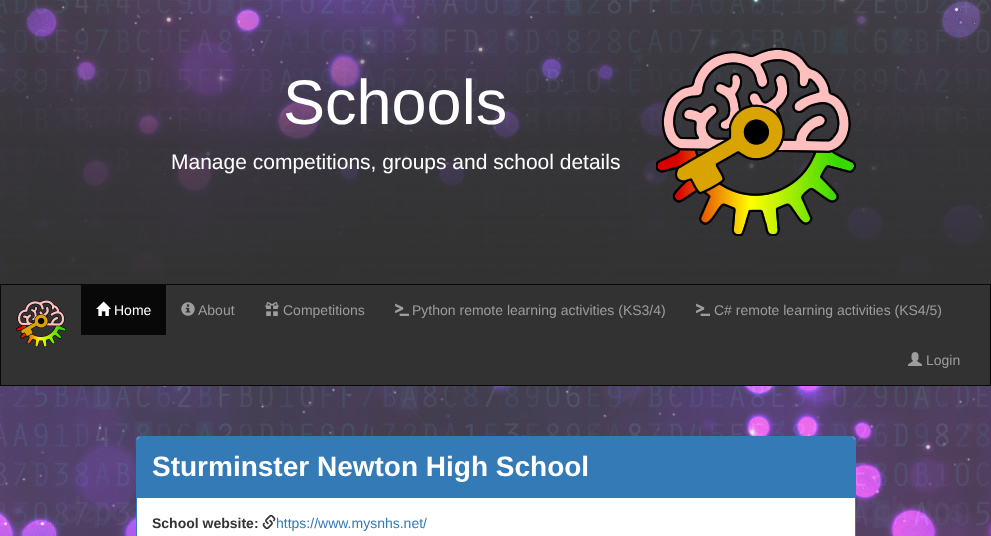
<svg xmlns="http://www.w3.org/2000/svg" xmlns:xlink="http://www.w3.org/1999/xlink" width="991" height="536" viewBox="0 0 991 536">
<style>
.cls-1{font:63px Liberation Sans;fill:#ffffff}
.cls-2{font:21px Liberation Sans;fill:#ffffff}
.cls-3{font:14px Liberation Sans;fill:#ffffff}
.cls-4{font:14px Liberation Sans;fill:#9d9d9d}
.cls-5{font:bold 28px Liberation Sans;fill:#ffffff}
.cls-6{font:bold 14px Liberation Sans;fill:#333333}
.cls-7{font:14px Liberation Sans;fill:#337ab7}
</style>
<rect width="100%" height="100%" fill="#ffffff"/>
<image xlink:href="image0.png" x="0" y="0" width="991" height="536"/>
<image xlink:href="image1.png" x="656" y="48" width="200" height="188"/>
<rect fill="#323232" stroke="#080808" x="0.5" y="284.5" width="990" height="101"/>
<image xlink:href="image2.png" x="16" y="300" width="50" height="47"/>
<rect fill="#080808" x="81" y="285" width="85" height="50"/>
<image xlink:href="image3.png" x="96" y="301" width="15" height="15"/>
<image xlink:href="image4.png" x="181" y="302" width="14" height="14"/>
<image xlink:href="image5.png" x="265" y="302" width="14" height="14"/>
<image xlink:href="image6.png" x="395" y="303" width="14" height="13"/>
<image xlink:href="image6.png" x="696" y="303" width="14" height="13"/>
<image xlink:href="image7.png" x="908" y="352" width="14" height="14"/>
<rect fill="#ffffff" stroke="#337ab7" x="136.5" y="436.5" width="719" height="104" rx="3.5"/>
<path fill="#337ab7" d="M140 437H852C853.5 437 855 438.5 855 440V498H137V440C137 438.5 138.5 437 140 437Z"/>
<image xlink:href="image8.png" x="262" y="514" width="14" height="16"/>
<text class="cls-1" x="283" y="124">Schools</text>
<text class="cls-2" x="171" y="169">Manage competitions, groups and school details</text>
<text class="cls-3" x="114" y="315">Home</text>
<text class="cls-4" x="198" y="315">About</text>
<text class="cls-4" x="283" y="315">Competitions</text>
<text class="cls-4" x="412" y="315">Python remote learning activities (KS3/4)</text>
<text class="cls-4" x="714" y="315">C# remote learning activities (KS4/5)</text>
<text class="cls-4" x="926" y="365">Login</text>
<text class="cls-5" x="152" y="476">Sturminster Newton High School</text>
<text class="cls-6" x="152" y="528">School website:</text>
<text class="cls-7" x="276" y="528">https://www.mysnhs.net/</text>
</svg>
